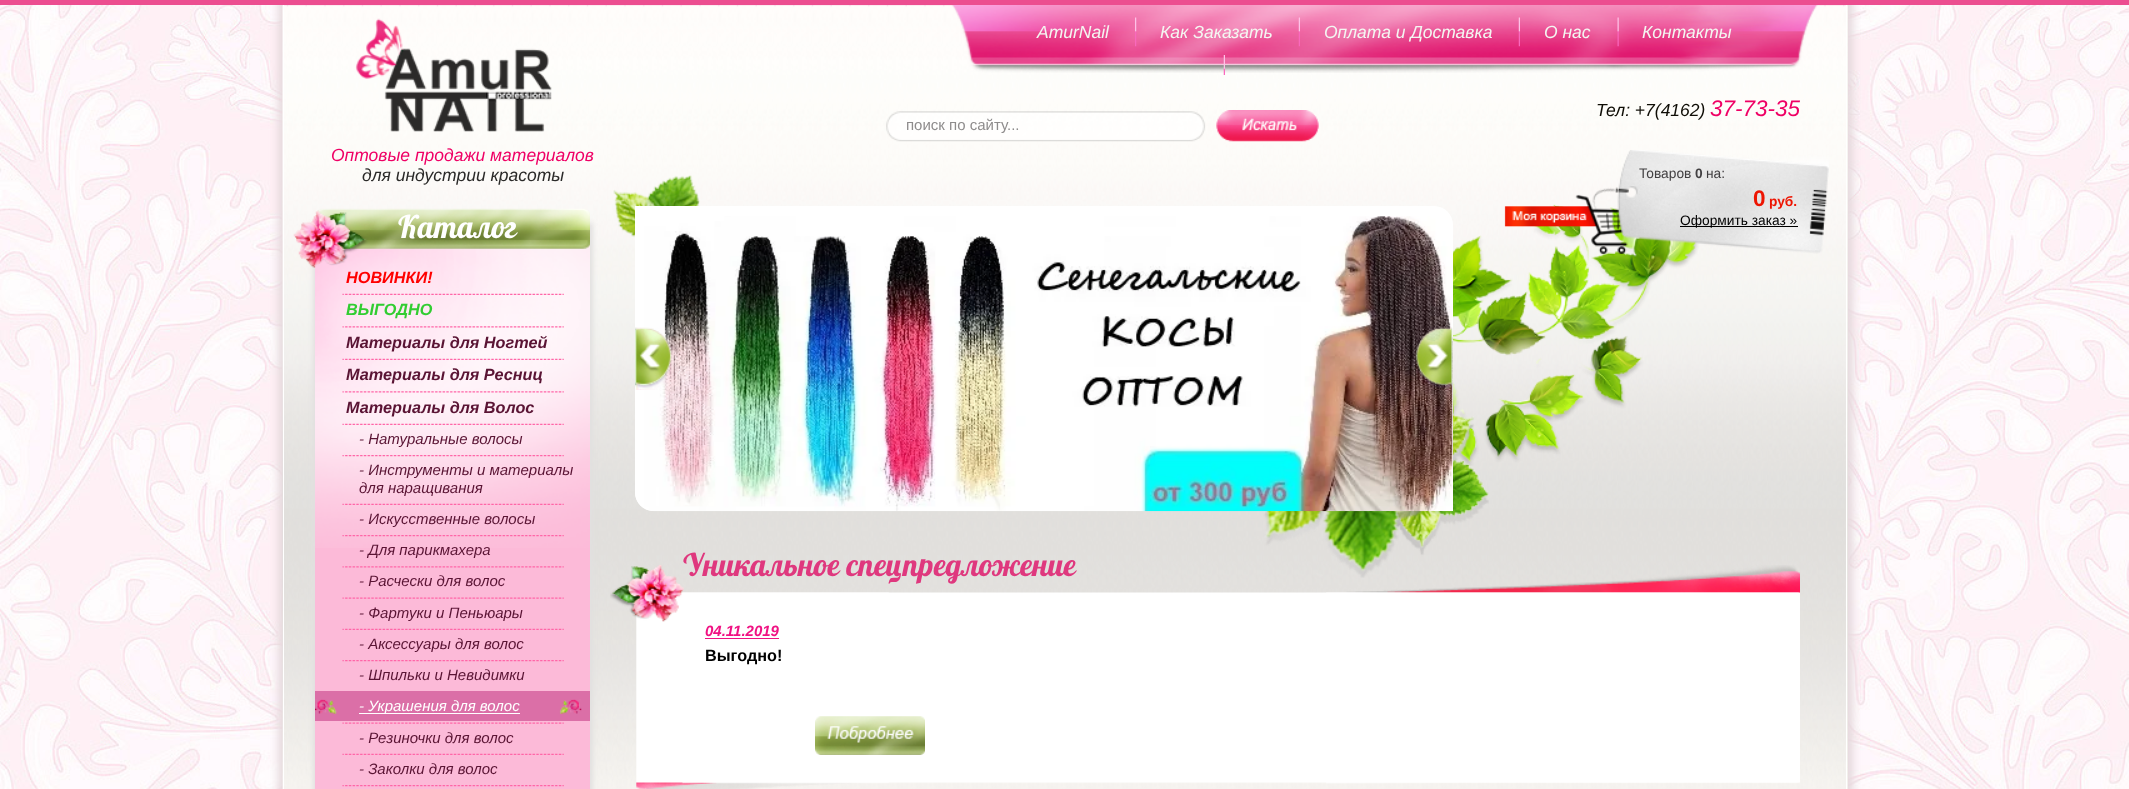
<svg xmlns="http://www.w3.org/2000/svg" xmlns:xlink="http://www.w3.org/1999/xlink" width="2129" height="789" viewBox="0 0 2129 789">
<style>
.cls-1{font:italic 17.5px Liberation Sans;fill:#f4f6f1}
.cls-2{font:italic 17.5px Liberation Sans;fill:#0f0d06}
.cls-3{font:italic 22.5px Liberation Sans;fill:#ef0065}
.cls-4{font:15px Liberation Sans;fill:#8e8c8c}
.cls-5{font:italic 17.5px Liberation Sans;fill:#ef0065}
.cls-6{font:italic 17.5px Liberation Sans;fill:#2b2a29}
.cls-7{font:13.75px Liberation Sans;fill:#424042}
.cls-8{font:bold 13.75px Liberation Sans;fill:#424042}
.cls-9{font:bold 22.5px Liberation Sans;fill:#ed1401}
.cls-10{font:bold 13.75px Liberation Sans;fill:#ed1401}
.cls-11{font:13.75px Liberation Sans;fill:#000000}
.cls-12{font:31.25px 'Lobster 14';fill:#df387e}
.cls-13{font:italic bold 15px Liberation Sans;fill:#f01283}
.cls-14{font:bold 16.25px Liberation Sans;fill:#000000}
.cls-15{font:31.25px 'Lobster 14';fill:#ffffff}
.cls-16{font:italic bold 16.25px Liberation Sans;fill:#ff0000}
.cls-17{font:italic bold 16.25px Liberation Sans;fill:#32cd32}
.cls-18{font:italic bold 16.25px Liberation Sans;fill:#5a1434}
.cls-19{font:italic 15px Liberation Sans;fill:#5a1434}
.cls-20{font:italic 15px Liberation Sans;fill:#ffffff}
</style>
<rect width="100%" height="100%" fill="#ffffff"/>
<image xlink:href="image0.png" x="0" y="5" width="2129" height="784"/>
<rect fill="#e5d8dc" filter="blur(4.5px)" x="278" y="-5" width="1575" height="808"/>
<rect fill="#efece8" x="1847" y="5" width="1" height="784"/>
<image xlink:href="image1.png" x="282" y="5" width="1566" height="784"/>
<rect fill="#ffffff" x="1846" y="0" width="1" height="789"/>
<rect fill="#ffffff" x="283" y="0" width="1" height="789"/>
<rect fill="#ec4e90" x="0" y="0" width="2129" height="5"/>
<image xlink:href="image2.png" x="355" y="18" width="197" height="114"/>
<image xlink:href="image3.png" x="951" y="5" width="867" height="68"/>
<image xlink:href="image4.png" x="1135" y="17" width="2" height="30"/>
<image xlink:href="image5.png" x="1298" y="17" width="2" height="30"/>
<image xlink:href="image6.png" x="1518" y="17" width="2" height="30"/>
<image xlink:href="image7.png" x="1617" y="17" width="2" height="30"/>
<image xlink:href="image8.png" x="1223" y="55" width="2" height="20"/>
<image xlink:href="image9.png" x="886" y="110" width="433" height="32"/>
<image xlink:href="image15.png" x="1453" y="204" width="246" height="262"/>
<image xlink:href="image10.png" x="1263" y="413" width="226" height="165"/>
<image xlink:href="image11.png" x="613" y="175" width="87" height="63"/>
<path fill="#ffffff" d="M635 206H1434C1444.5 206 1453 214.5 1453 225V511H654C643.5 511 635 502.5 635 492Z"/>
<image xlink:href="image12.png" x="635" y="216" width="818" height="296"/>
<image xlink:href="image13.png" x="635" y="327" width="37" height="63"/>
<image xlink:href="image14.png" x="1416" y="327" width="37" height="63"/>
<image xlink:href="image16.png" x="1504" y="150" width="325" height="104"/>
<rect fill="#000000" x="1680" y="226" width="118" height="1"/>
<image xlink:href="image17.png" x="610" y="565" width="279" height="224"/>
<image xlink:href="image18.png" x="1326" y="565" width="474" height="219"/>
<image xlink:href="image19.png" x="682" y="592" width="1118" height="192"/>
<rect fill="#f01283" x="705" y="638" width="74" height="1"/>
<image xlink:href="image20.png" x="815" y="716" width="110" height="39"/>
<rect fill="#e1e0df" filter="blur(2.5px)" x="313" y="223" width="280" height="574"/>
<image xlink:href="image22.png" x="315" y="243" width="275" height="305"/>
<image xlink:href="image21.png" x="293" y="208" width="297" height="60"/>
<rect fill="#fcbad8" x="315" y="548" width="275" height="241"/>
<image xlink:href="image23.png" x="342" y="293" width="222" height="2"/>
<image xlink:href="image24.png" x="342" y="326" width="222" height="2"/>
<image xlink:href="image25.png" x="342" y="358" width="222" height="2"/>
<image xlink:href="image26.png" x="342" y="391" width="222" height="2"/>
<image xlink:href="image27.png" x="342" y="423" width="222" height="2"/>
<image xlink:href="image28.png" x="342" y="455" width="222" height="2"/>
<image xlink:href="image29.png" x="342" y="503" width="222" height="2"/>
<image xlink:href="image30.png" x="342" y="535" width="222" height="2"/>
<image xlink:href="image31.png" x="342" y="566" width="222" height="2"/>
<image xlink:href="image32.png" x="342" y="597" width="222" height="2"/>
<image xlink:href="image33.png" x="342" y="628" width="222" height="2"/>
<image xlink:href="image34.png" x="342" y="660" width="222" height="2"/>
<rect fill="#db6fa7" x="315" y="691" width="275" height="30"/>
<image xlink:href="image35.png" x="315" y="699" width="267" height="15"/>
<rect fill="#ffffff" x="359" y="713" width="161" height="1"/>
<image xlink:href="image32.png" x="342" y="722" width="222" height="2"/>
<image xlink:href="image33.png" x="342" y="753" width="222" height="2"/>
<image xlink:href="image34.png" x="342" y="785" width="222" height="2"/>
<text class="cls-1" x="1037" y="38">AmurNail</text>
<text class="cls-1" x="1160" y="38">Как Заказать</text>
<text class="cls-1" x="1324" y="38">Оплата и Доставка</text>
<text class="cls-1" x="1544" y="38">О нас</text>
<text class="cls-1" x="1642" y="38">Контакты</text>
<text class="cls-2" x="1596" y="116">Тел: +7(4162)</text>
<text class="cls-3" x="1710" y="116">37-73-35</text>
<text class="cls-4" x="906" y="130">поиск по сайту...</text>
<text class="cls-5" x="331" y="161">Оптовые продажи материалов</text>
<text class="cls-6" x="362" y="181">для индустрии красоты</text>
<text class="cls-7" x="1639" y="178">Товаров</text>
<text class="cls-8" x="1695" y="178">0</text>
<text class="cls-7" x="1706" y="178">на:</text>
<text class="cls-9" x="1753" y="206">0</text>
<text class="cls-10" x="1769" y="206">руб.</text>
<text class="cls-11" x="1680" y="225">Оформить заказ »</text>
<text class="cls-12" x="683" y="576">Уникальное спецпредложение</text>
<text class="cls-13" x="705" y="636">04.11.2019</text>
<text class="cls-14" x="705" y="661">Выгодно!</text>
<text class="cls-15" x="398" y="238">Каталог</text>
<text class="cls-16" x="346" y="283">НОВИНКИ!</text>
<text class="cls-17" x="346" y="315">ВЫГОДНО</text>
<text class="cls-18"><tspan x="346" y="348">Материалы для Ногтей</tspan><tspan x="346" y="380">Материалы для Ресниц</tspan></text>
<text class="cls-18" x="346" y="413">Материалы для Волос</text>
<text class="cls-19" x="359" y="444">- Натуральные волосы</text>
<text class="cls-19"><tspan x="359" y="475">- Инструменты и материалы</tspan><tspan x="359" y="493">для наращивания</tspan></text>
<text class="cls-19" x="359" y="524">- Искусственные волосы</text>
<text class="cls-19" x="359" y="555">- Для парикмахера</text>
<text class="cls-19" x="359" y="586">- Расчески для волос</text>
<text class="cls-19" x="359" y="618">- Фартуки и Пеньюары</text>
<text class="cls-19" x="359" y="649">- Аксессуары для волос</text>
<text class="cls-19" x="359" y="680">- Шпильки и Невидимки</text>
<text class="cls-20" x="359" y="711">- Украшения для волос</text>
<text class="cls-19" x="359" y="743">- Резиночки для волос</text>
<text class="cls-19" x="359" y="774">- Заколки для волос</text>
</svg>
